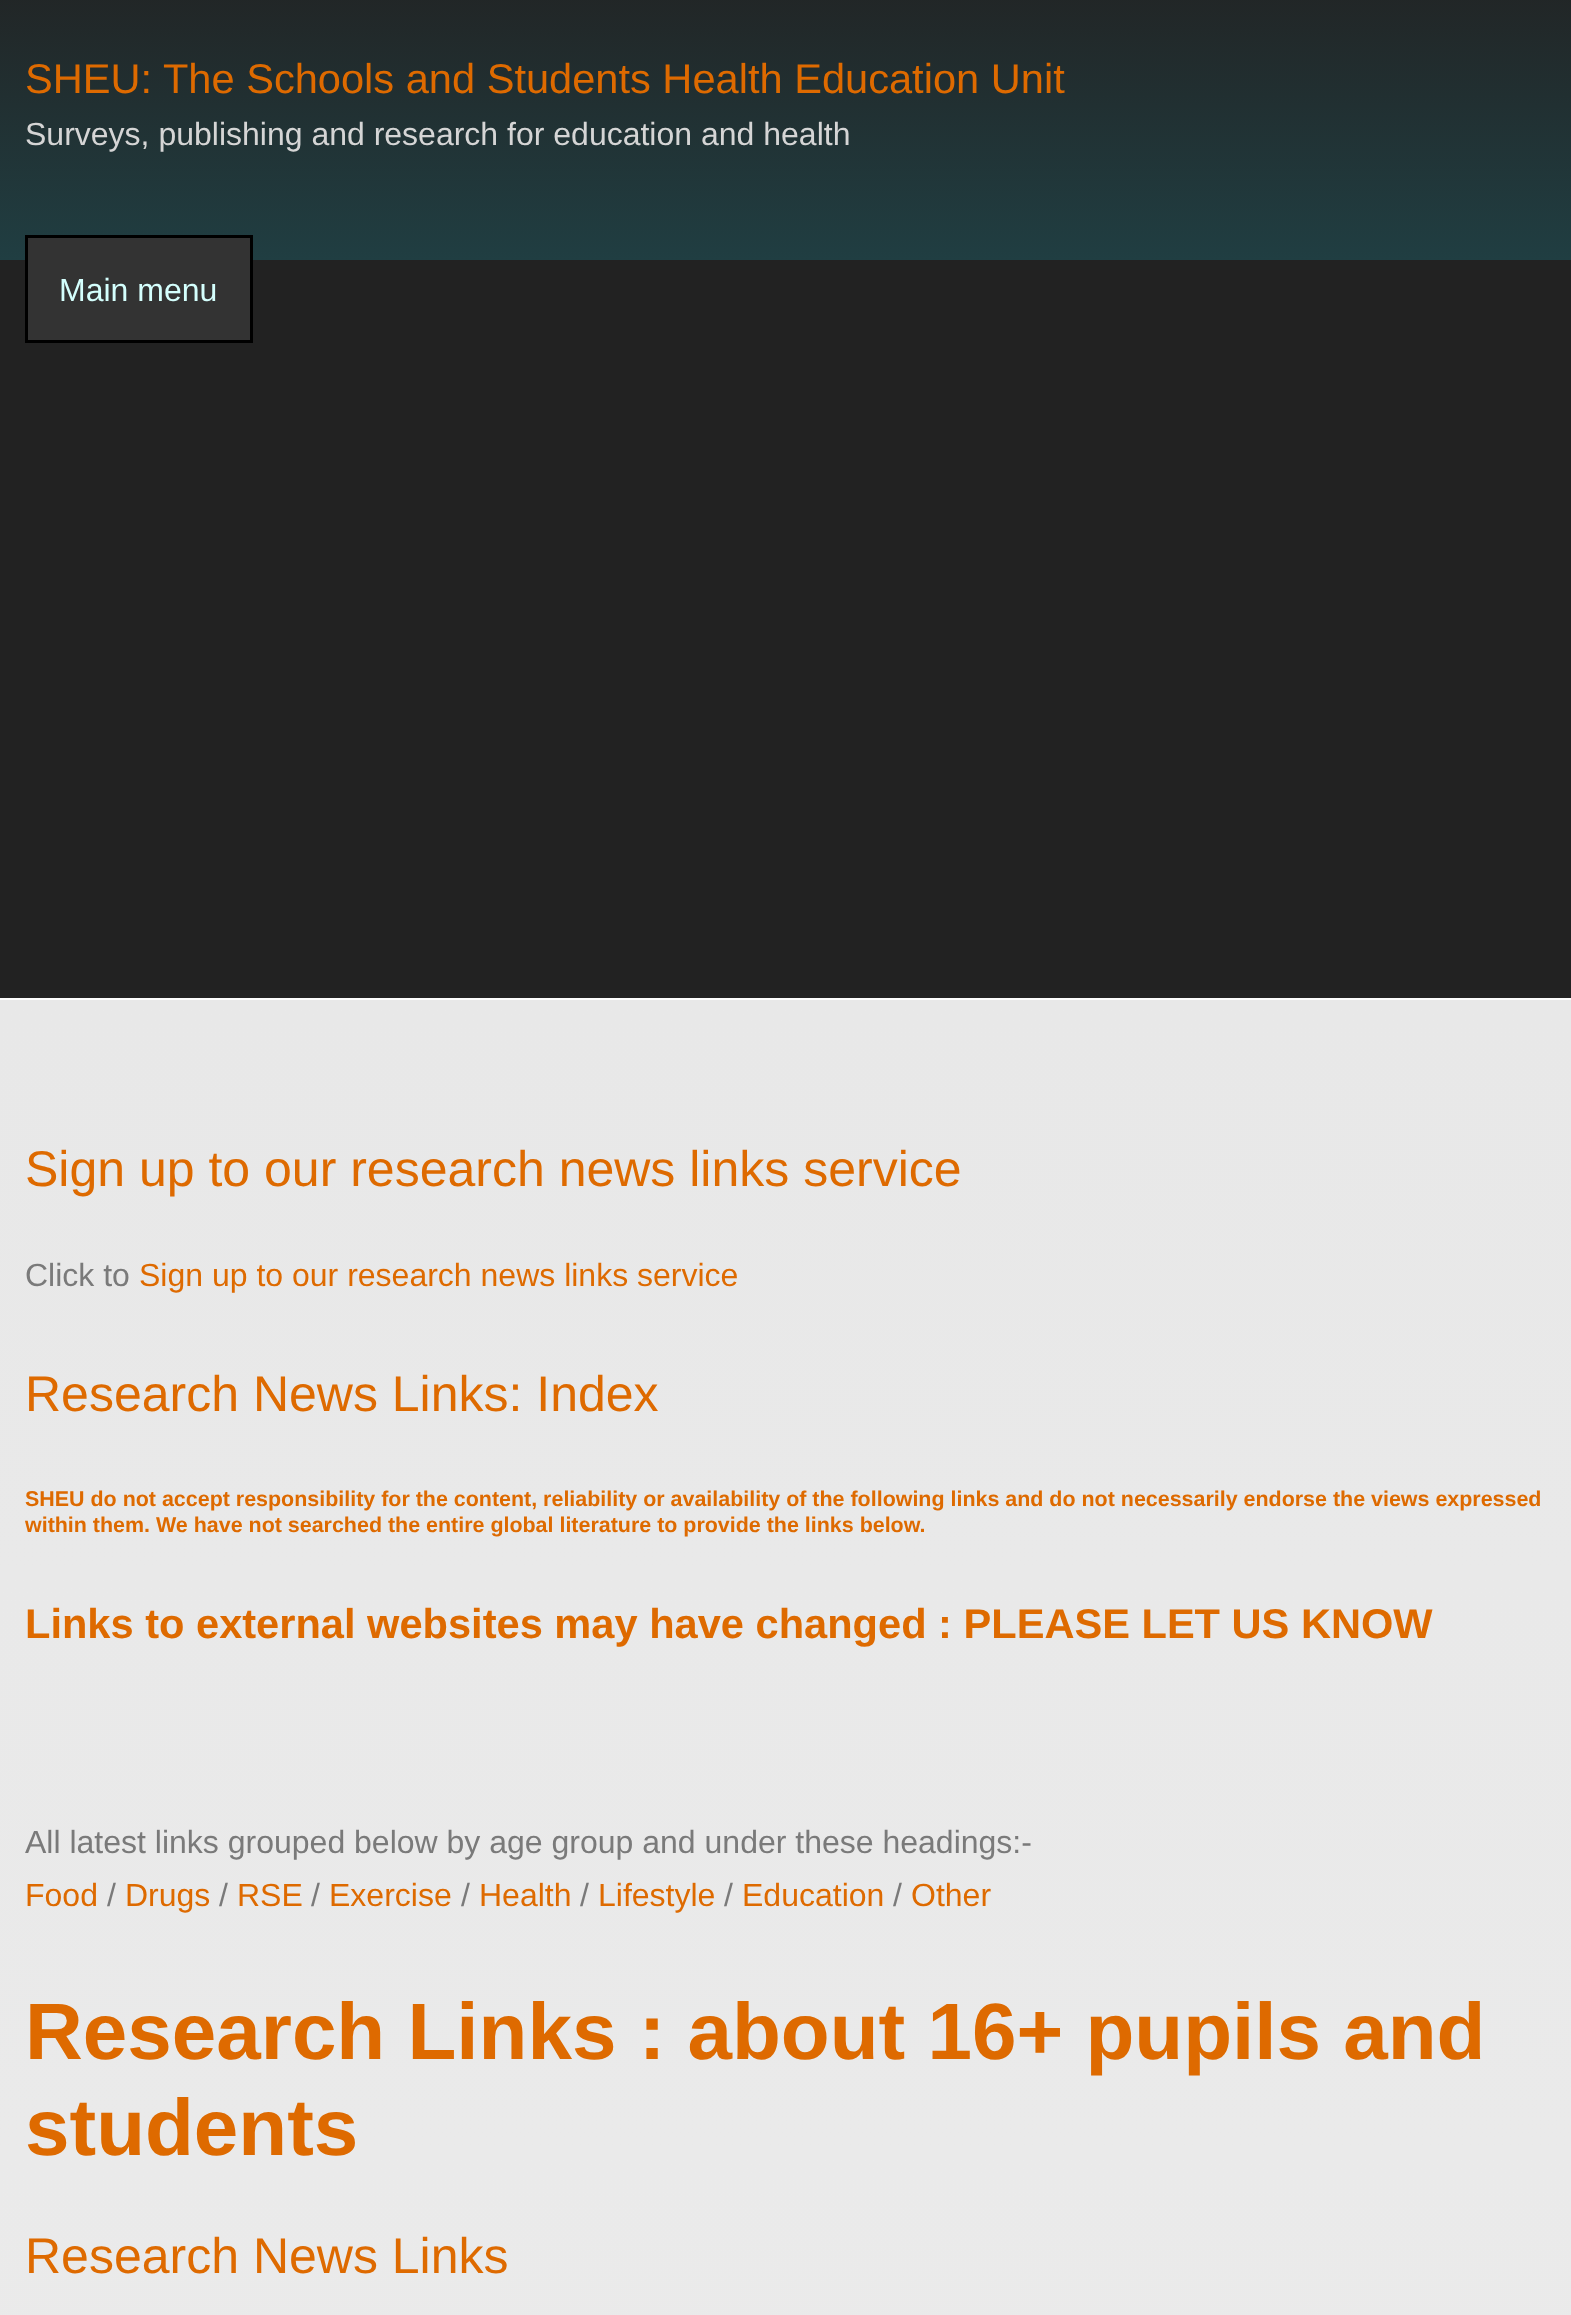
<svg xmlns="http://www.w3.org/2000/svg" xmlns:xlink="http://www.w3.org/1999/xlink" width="1571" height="2315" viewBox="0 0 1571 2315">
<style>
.cls-1{font:41.6px Liberation Sans;fill:#de6a00}
.cls-2{font:32px Liberation Sans;fill:#d5d5d5}
.cls-3{font:32px Liberation Sans;fill:#d4fffd}
.cls-4{font:50px Liberation Sans;fill:#de6a00}
.cls-5{font:32px Liberation Sans;fill:#7a7a7a}
.cls-6{font:32px Liberation Sans;fill:#de6a00}
.cls-7{font:bold 21.45px Liberation Sans;fill:#de6a00}
.cls-8{font:bold 41.6px Liberation Sans;fill:#de6a00}
.cls-9{font:bold 80px Liberation Sans;fill:#de6a00}
</style>
<defs>
<linearGradient id="g1" gradientUnits="userSpaceOnUse" x1="786" y1="-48" x2="786" y2="260"><stop offset="0" stop-color="#222222"/><stop offset="1" stop-color="#203e42"/></linearGradient>
<linearGradient id="g2" gradientUnits="userSpaceOnUse" x1="786" y1="1000" x2="786" y2="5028"><stop offset="0" stop-color="#e8e8e8"/><stop offset="1" stop-color="#efefef"/></linearGradient>
</defs>
<rect width="100%" height="100%" fill="#222222"/>
<rect fill="url(#g1)" x="0" y="0" width="1571" height="260"/>
<rect fill="#333333" stroke="#000000" stroke-width="3" x="26.5" y="236.5" width="225" height="105"/>
<rect fill="#fcfcfc" x="0" y="998" width="1571" height="2"/>
<rect fill="url(#g2)" x="0" y="1000" width="1571" height="1315"/>
<text class="cls-1" x="25" y="93">SHEU: The Schools and Students Health Education Unit</text>
<text class="cls-2" x="25" y="145">Surveys, publishing and research for education and health</text>
<text class="cls-3" x="59" y="301">Main menu</text>
<text class="cls-4" x="25" y="1186">Sign up to our research news links service</text>
<text class="cls-5" x="25" y="1286">Click to</text>
<text class="cls-6" x="139" y="1286">Sign up to our research news links service</text>
<text class="cls-4" x="25" y="1411">Research News Links: Index</text>
<text class="cls-7"><tspan x="25" y="1506">SHEU do not accept responsibility for the content, reliability or availability of the following links and do not necessarily endorse the views expressed</tspan><tspan x="25" y="1532">within them. We have not searched the entire global literature to provide the links below.</tspan></text>
<text class="cls-8" x="25" y="1638">Links to external websites may have changed : PLEASE LET US KNOW</text>
<text class="cls-5" x="25" y="1853">All latest links grouped below by age group and under these headings:-</text>
<text class="cls-6" x="25" y="1906">Food</text>
<text class="cls-5" x="107" y="1906">/</text>
<text class="cls-6" x="125" y="1906">Drugs</text>
<text class="cls-5" x="219" y="1906">/</text>
<text class="cls-6" x="237" y="1906">RSE</text>
<text class="cls-5" x="311" y="1906">/</text>
<text class="cls-6" x="329" y="1906">Exercise</text>
<text class="cls-5" x="461" y="1906">/</text>
<text class="cls-6" x="479" y="1906">Health</text>
<text class="cls-5" x="580" y="1906">/</text>
<text class="cls-6" x="598" y="1906">Lifestyle</text>
<text class="cls-5" x="724" y="1906">/</text>
<text class="cls-6" x="742" y="1906">Education</text>
<text class="cls-5" x="893" y="1906">/</text>
<text class="cls-6" x="911" y="1906">Other</text>
<text class="cls-9"><tspan x="25" y="2059">Research Links : about 16+ pupils and</tspan><tspan x="25" y="2155">students</tspan></text>
<text class="cls-4" x="25" y="2273">Research News Links</text>
</svg>
